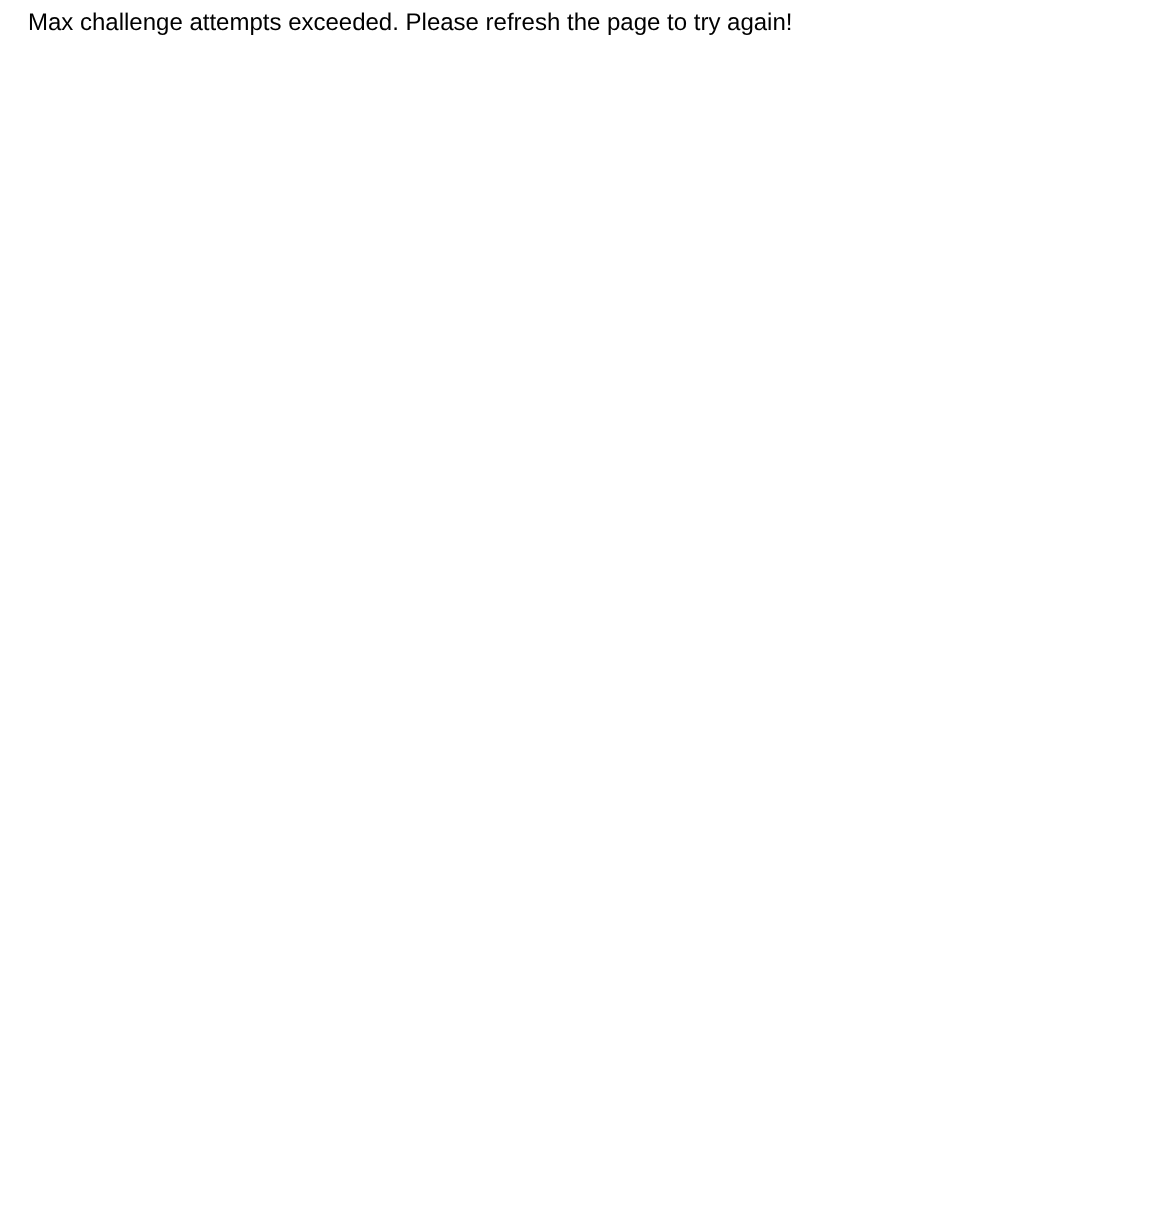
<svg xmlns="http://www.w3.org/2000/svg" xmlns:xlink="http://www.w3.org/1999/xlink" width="1172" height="1212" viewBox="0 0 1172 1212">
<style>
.cls-1{font:24px Liberation Sans;fill:#000000}
</style>
<rect width="100%" height="100%" fill="#ffffff"/>
<text class="cls-1" x="28" y="30">Max challenge attempts exceeded. Please refresh the page to try again!</text>
</svg>
